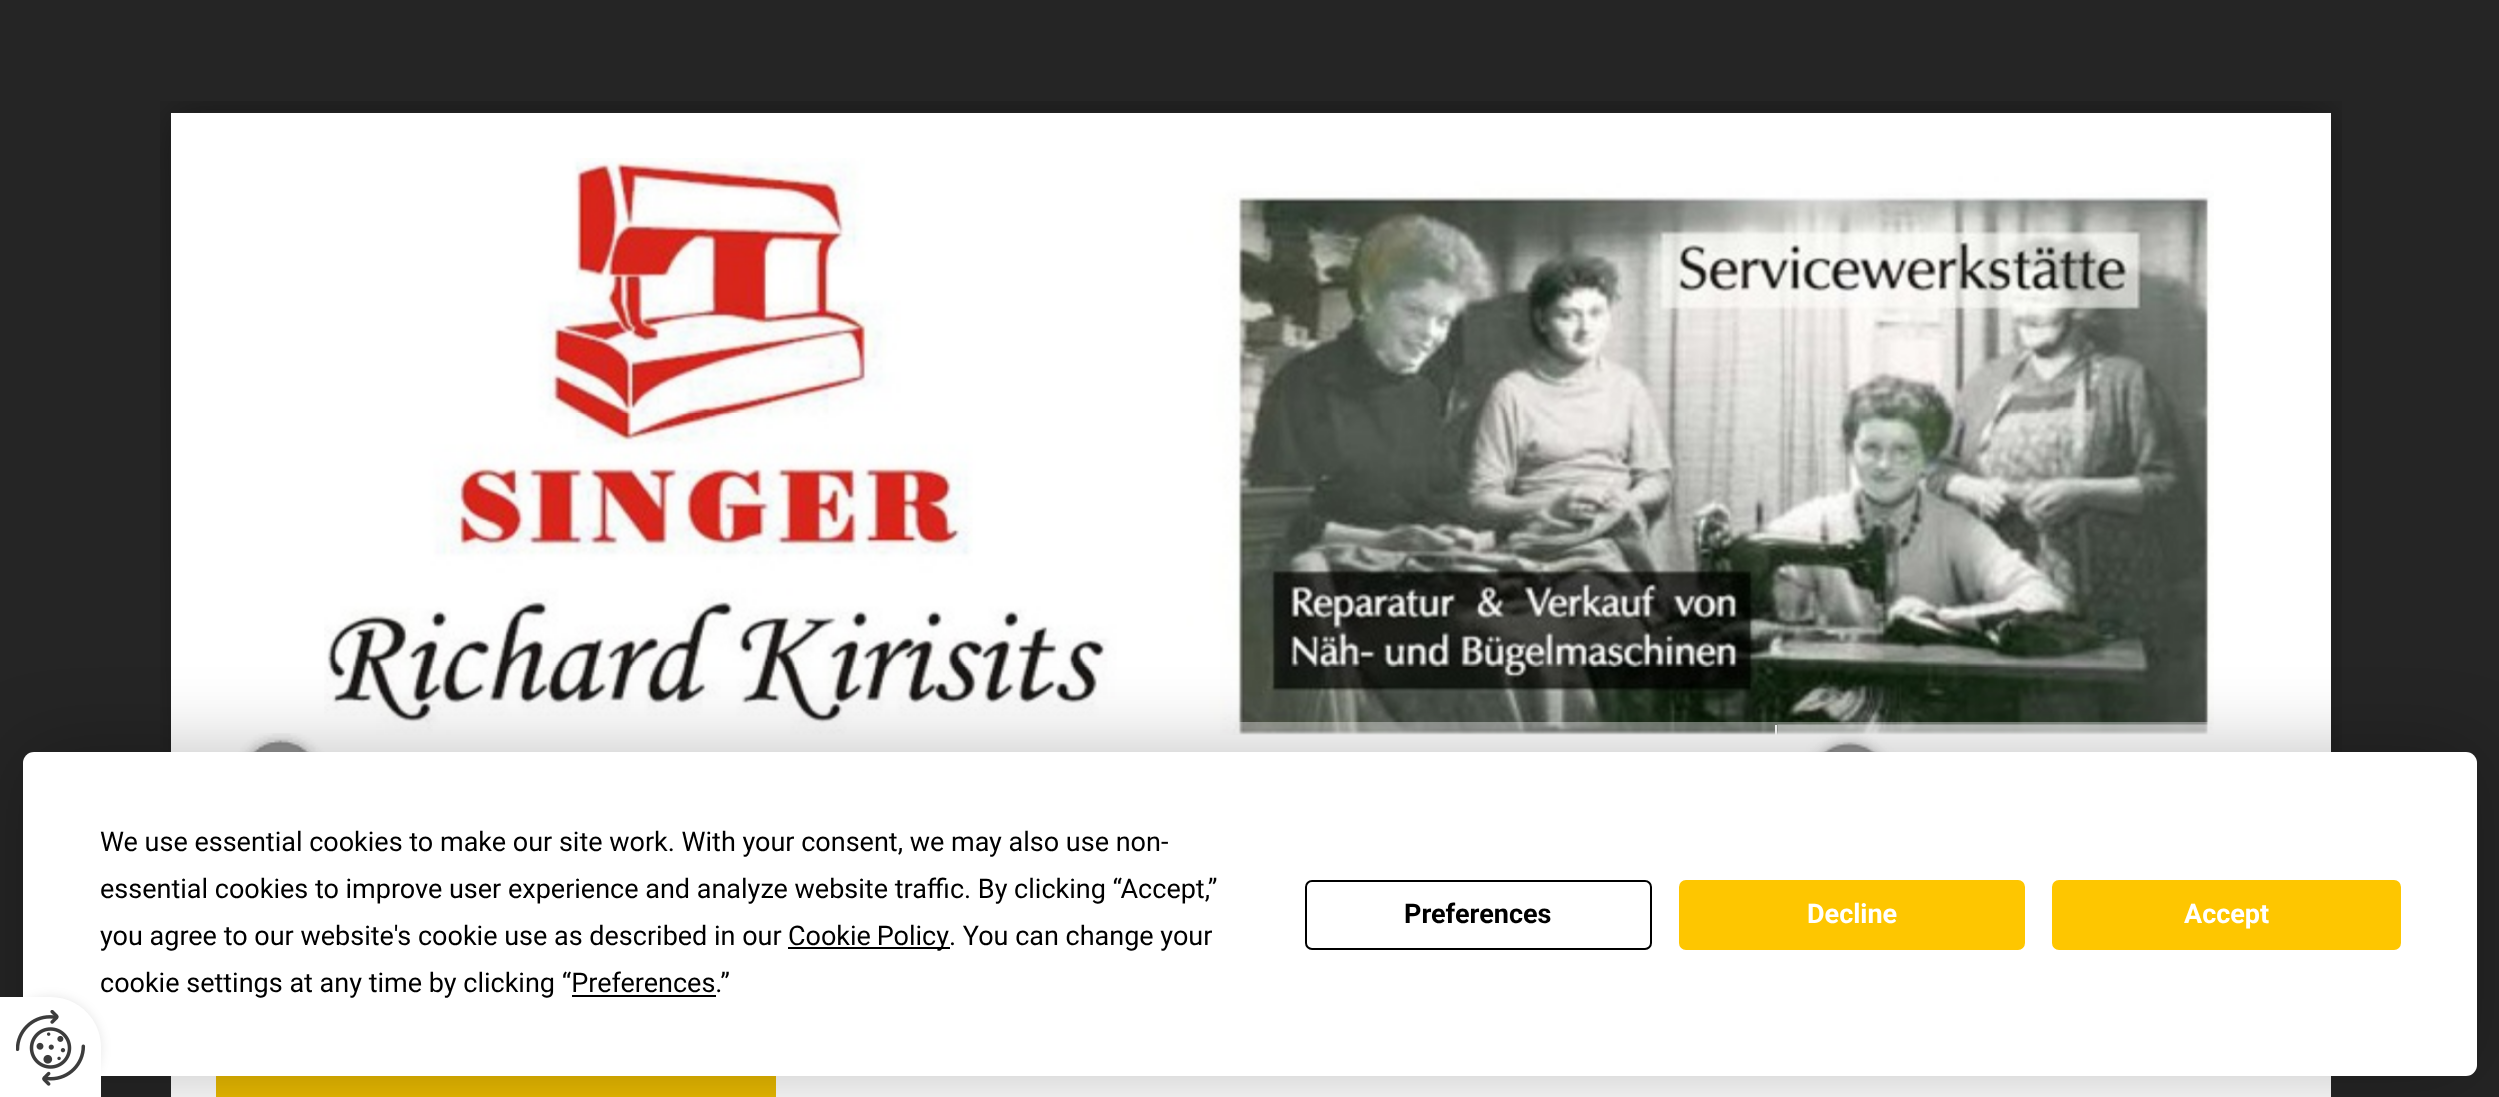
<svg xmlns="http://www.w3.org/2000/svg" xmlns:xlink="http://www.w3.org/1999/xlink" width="2499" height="1097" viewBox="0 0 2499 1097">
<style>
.cls-1{font:27px Roboto;fill:#000000}
.cls-2{font:bold 27px Roboto;fill:#000000}
.cls-3{font:bold 27px Roboto;fill:#ffffff}
</style>
<rect width="100%" height="100%" fill="#252525"/>
<image xlink:href="image0.png" x="160" y="101" width="2182" height="651"/>
<rect fill="#ffffff" x="171" y="113" width="2160" height="984"/>
<image xlink:href="image1.png" x="324" y="158" width="1890" height="577"/>
<rect fill="#ffffff" fill-opacity="0.4" x="1238" y="722" width="971" height="13"/>
<image xlink:href="image2.png" x="233" y="733" width="94" height="19"/>
<image xlink:href="image3.png" x="1777" y="724" width="509" height="28"/>
<rect fill="#ffffff" x="1775" y="725" width="2" height="10"/>
<rect fill="#f3c200" x="216" y="1076" width="560" height="21"/>
<image xlink:href="image4.png" x="216" y="1076" width="560" height="21"/>
<rect fill="#000000" fill-opacity="0.25" filter="blur(39.5px)" x="23" y="752" width="2454" height="324" rx="11"/>
<rect fill="#ffffff" x="23" y="752" width="2454" height="324" rx="11"/>
<rect fill="#000000" x="788" y="947" width="162" height="2"/>
<rect fill="#000000" x="572" y="995" width="144" height="2"/>
<rect fill="none" stroke="#000000" stroke-width="2" x="1306" y="881" width="345" height="68" rx="6"/>
<rect fill="#fec600" stroke="#fec600" stroke-width="2" x="1680" y="881" width="344" height="68" rx="6"/>
<rect fill="#fec600" stroke="#fec600" stroke-width="2" x="2053" y="881" width="347" height="68" rx="6"/>
<rect fill="#000000" fill-opacity="0.1" filter="blur(5.5px)" x="0" y="997" width="101" height="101" rx="50.5"/>
<text class="cls-1"><tspan x="100" y="851">We use essential cookies to make our site work. With your consent, we may also use non-</tspan><tspan x="100" y="898">essential cookies to improve user experience and analyze website traffic. By clicking “Accept,”</tspan><tspan x="100" y="945">you agree to our website's cookie use as described in our</tspan></text>
<text class="cls-1" x="788" y="945" word-spacing="-1">Cookie Policy</text>
<text class="cls-1" x="949" y="945">. You can change your</text>
<text class="cls-1" x="100" y="992">cookie settings at any time by clicking “Preferences.”</text>
<text class="cls-2" x="1404" y="923">Preferences</text>
<text class="cls-3" x="1807" y="923">Decline</text>
<text class="cls-3" x="2184" y="923">Accept</text>
<path fill="#ffffff" d="M0 997H50.5C78.5 997 101 1019.5 101 1047.5V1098H0Z"/>
<image xlink:href="image5.png" x="16" y="1010" width="70" height="76"/>
</svg>
